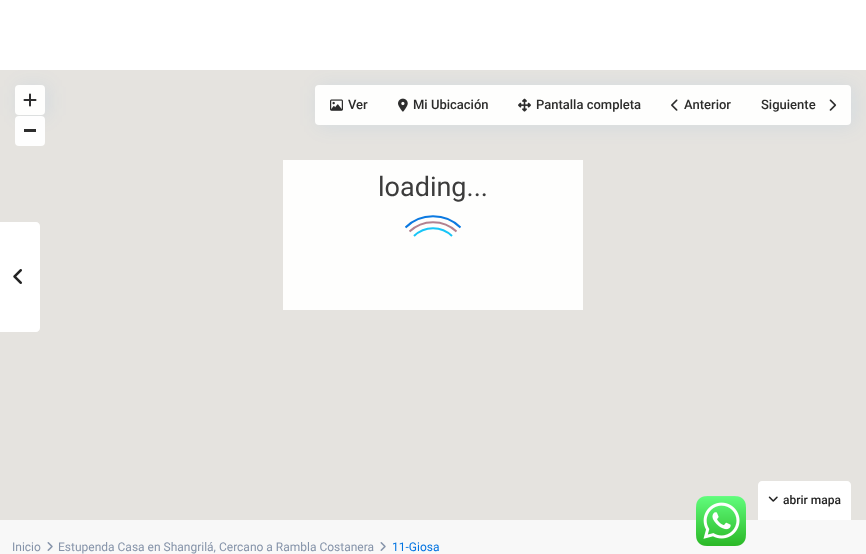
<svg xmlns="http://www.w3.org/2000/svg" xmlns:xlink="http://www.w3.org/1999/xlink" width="866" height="554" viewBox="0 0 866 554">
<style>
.cls-1{font:500 13px Roboto;fill:#2c2c2b}
.cls-2{font:500 12px Roboto;fill:#222222}
.cls-3{font:27px Roboto;fill:#3c3c3c}
.cls-4{font:12px Roboto;fill:#8593a9}
.cls-5{font:12px Roboto;fill:#0073e1}
</style>
<rect width="100%" height="100%" fill="#f8f8f8"/>
<rect fill="#e5e3df" x="0" y="70" width="866" height="450"/>
<rect fill="#006ee1" fill-opacity="0.08" filter="blur(10px)" x="18" y="86" width="30" height="30" rx="4"/>
<rect fill="#006ee1" fill-opacity="0.08" filter="blur(10px)" x="318" y="86" width="536" height="40" rx="4"/>
<rect fill="#ffffff" x="0" y="0" width="866" height="70"/>
<rect fill="#fefefd" x="283" y="160" width="300" height="150"/>
<rect fill="#fefefd" x="15" y="85" width="30" height="30" rx="4"/>
<image xlink:href="image0.png" x="23" y="93" width="14" height="14"/>
<rect fill="#fefefd" x="315" y="85" width="536" height="40" rx="4"/>
<image xlink:href="image1.png" x="330" y="99" width="13" height="12"/>
<image xlink:href="image2.png" x="398" y="98" width="10" height="14"/>
<image xlink:href="image3.png" x="518" y="98" width="13" height="14"/>
<image xlink:href="image4.png" x="671" y="99" width="7" height="12"/>
<image xlink:href="image5.png" x="829" y="99" width="8" height="12"/>
<rect fill="#ffffff" fill-opacity="0.95" x="15" y="116" width="30" height="30" rx="4"/>
<rect fill="#2d2d2d" x="24" y="129" width="12" height="3"/>
<path fill="#ffffff" d="M762 481H847C849 481 851 483 851 485V520H758V485C758 483 760 481 762 481Z"/>
<image xlink:href="image6.png" x="768" y="496" width="10" height="6"/>
<path fill="none" stroke="#0b79e1" stroke-width="2" d="M405.5 227.5C420.5 212.5 445.5 212.5 460.5 227.5"/>
<path fill="none" stroke="#b38290" stroke-width="2" d="M409.5 231.5C422.5 219 443.5 219 456.5 231.5"/>
<path fill="none" stroke="#18c5f7" stroke-width="2" d="M414 236C424.5 225.5 441.5 225.5 452 236"/>
<image xlink:href="image7.png" x="47" y="542" width="6" height="9"/>
<image xlink:href="image7.png" x="380" y="542" width="6" height="9"/>
<path fill="#ffffff" d="M-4 222H36C38 222 40 224 40 226V328C40 330 38 332 36 332H-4Z"/>
<image xlink:href="image8.png" x="13" y="269" width="9" height="15"/>
<image xlink:href="image9.png" x="696" y="496" width="50" height="50"/>
<text class="cls-1" x="348" y="109">Ver</text>
<text class="cls-1" x="413" y="109">Mi Ubicación</text>
<text class="cls-1" x="536" y="109">Pantalla completa</text>
<text class="cls-1" x="684" y="109">Anterior</text>
<text class="cls-1" x="761" y="109">Siguiente</text>
<text class="cls-2" x="783" y="504">abrir mapa</text>
<text class="cls-3" x="378" y="196">loading...</text>
<text class="cls-4" x="12" y="551">Inicio</text>
<text class="cls-4" x="58" y="551">Estupenda Casa en Shangrilá, Cercano a Rambla Costanera</text>
<text class="cls-5" x="392" y="551">11-Giosa</text>
</svg>
